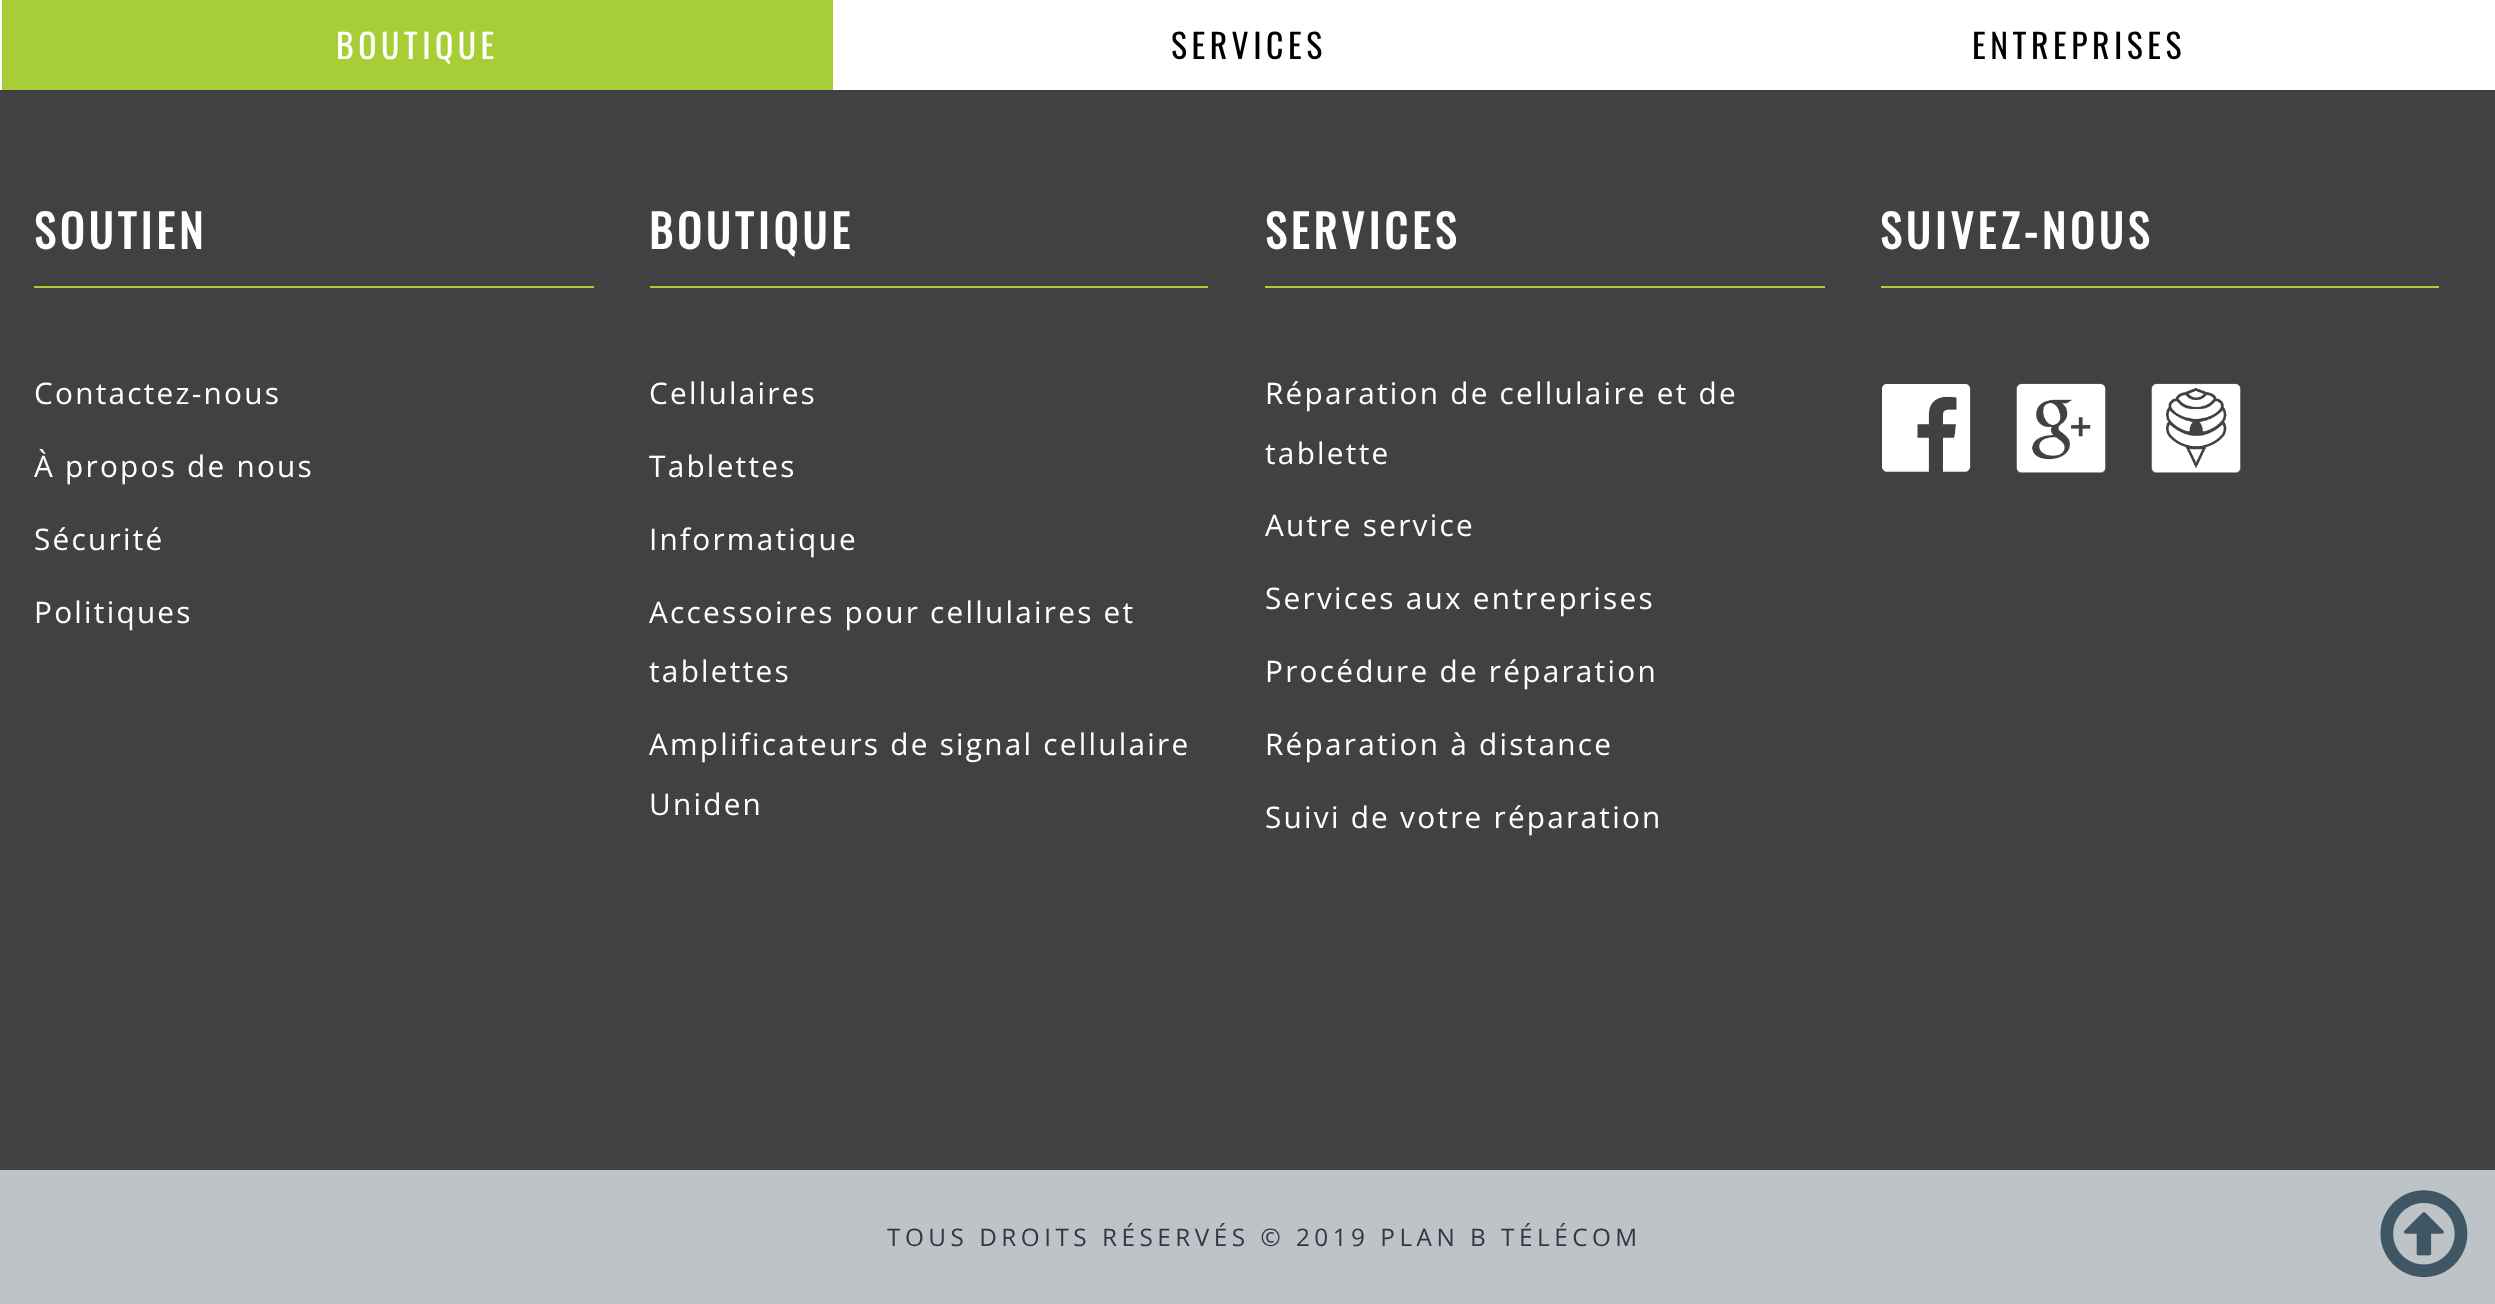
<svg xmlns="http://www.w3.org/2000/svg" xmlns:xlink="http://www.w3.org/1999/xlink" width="2495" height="1304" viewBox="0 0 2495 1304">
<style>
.cls-1{font:33.75px Oswald;letter-spacing:4.5px;fill:#ffffff}
.cls-2{font:33.75px Oswald;letter-spacing:4.5px;fill:#000000}
.cls-3{font:bold 45px Oswald;letter-spacing:4.5px;fill:#ffffff}
.cls-4{font:29.75px Open Sans;letter-spacing:2.25px;fill:#ffffff}
.cls-5{font:24.3px Open Sans;letter-spacing:4.5px;fill:#333745}
</style>
<rect width="100%" height="100%" fill="#414141"/>
<rect fill="#ffffff" x="833" y="0" width="1662" height="90"/>
<rect fill="#a8ce37" x="2" y="0" width="831" height="90"/>
<rect fill="#ffffff" x="0" y="0" width="2" height="90"/>
<rect fill="#a8cf38" x="34" y="286" width="560" height="2"/>
<rect fill="#a8cf38" x="650" y="286" width="558" height="2"/>
<rect fill="#a8cf38" x="1265" y="286" width="560" height="2"/>
<rect fill="#a8cf38" x="1881" y="286" width="558" height="2"/>
<image xlink:href="image0.png" x="1882" y="384" width="89" height="88"/>
<image xlink:href="image1.png" x="2016" y="383" width="90" height="90"/>
<image xlink:href="image2.png" x="2151" y="383" width="90" height="90"/>
<rect fill="#bdc3c7" x="0" y="1170" width="2495" height="134"/>
<image xlink:href="image3.png" x="2380" y="1190" width="88" height="88"/>
<text class="cls-1" x="336" y="59">BOUTIQUE</text>
<text class="cls-2" x="1171" y="59">SERVICES</text>
<text class="cls-2" x="1972" y="59">ENTREPRISES</text>
<text class="cls-3" x="34" y="249">SOUTIEN</text>
<text class="cls-4" x="34" y="404">Contactez-nous</text>
<text class="cls-4" x="34" y="477">À propos de nous</text>
<text class="cls-4" x="34" y="550">Sécurité</text>
<text class="cls-4" x="34" y="623">Politiques</text>
<text class="cls-3" x="649" y="249">BOUTIQUE</text>
<text class="cls-4" x="649" y="404">Cellulaires</text>
<text class="cls-4" x="649" y="477">Tablettes</text>
<text class="cls-4" x="649" y="550">Informatique</text>
<text class="cls-4"><tspan x="649" y="623">Accessoires pour cellulaires et</tspan><tspan x="649" y="682">tablettes</tspan></text>
<text class="cls-4" x="649" y="755">Amplificateurs de signal cellulaire</text>
<text class="cls-4" x="649" y="815">Uniden</text>
<text class="cls-3" x="1265" y="249">SERVICES</text>
<text class="cls-4" x="1265" y="404">Réparation de cellulaire et de</text>
<text class="cls-4" x="1265" y="464">tablette</text>
<text class="cls-4" x="1265" y="536">Autre service</text>
<text class="cls-4" x="1265" y="609">Services aux entreprises</text>
<text class="cls-4" x="1265" y="682">Procédure de réparation</text>
<text class="cls-4" x="1265" y="755">Réparation à distance</text>
<text class="cls-4" x="1265" y="828">Suivi de votre réparation</text>
<text class="cls-3" x="1880" y="249">SUIVEZ-NOUS</text>
<text class="cls-5" x="887" y="1246">TOUS DROITS RÉSERVÉS © 2019 PLAN B TÉLÉCOM</text>
</svg>
